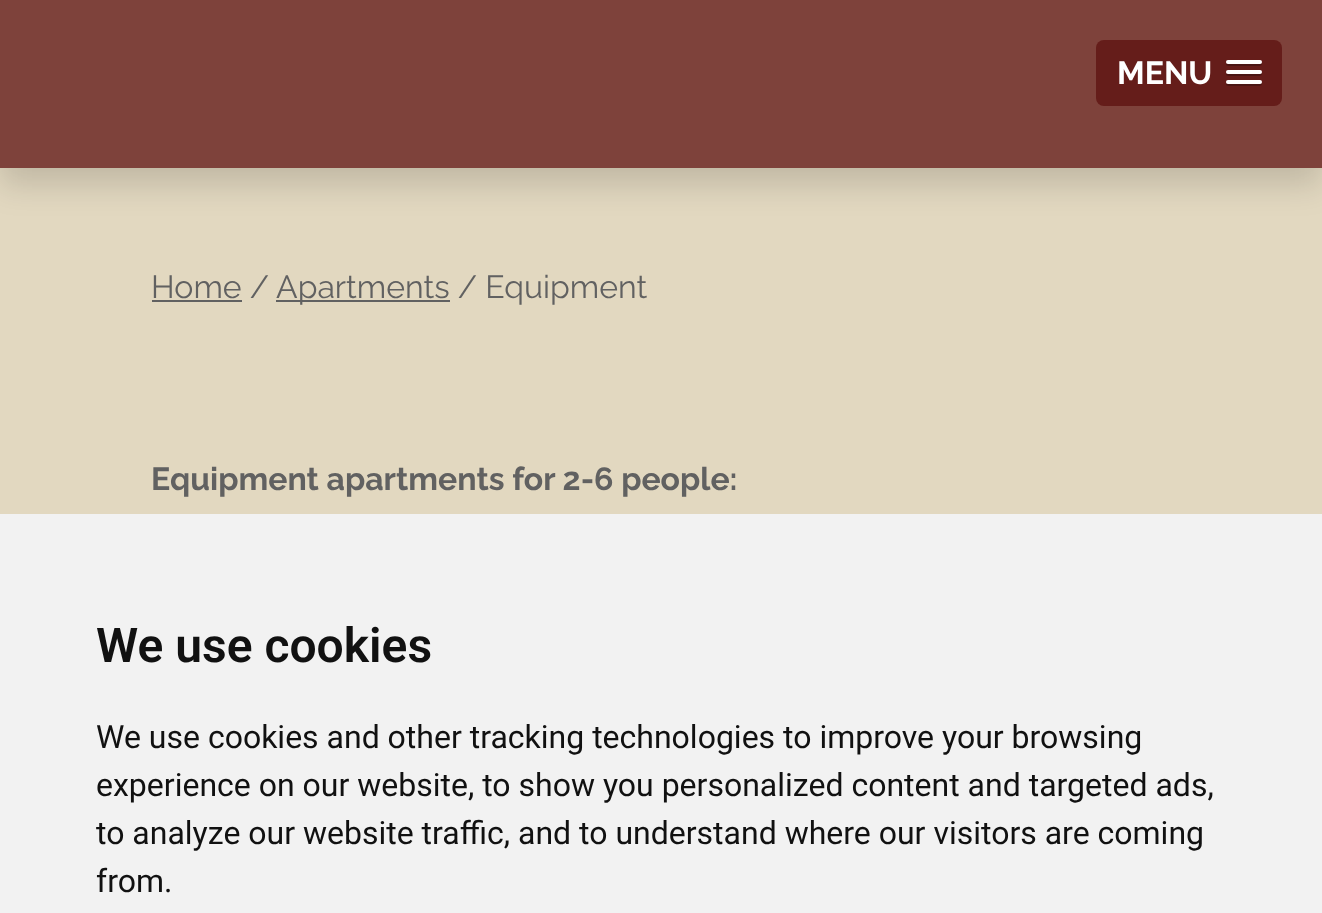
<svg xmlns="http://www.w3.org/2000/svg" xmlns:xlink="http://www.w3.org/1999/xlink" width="1322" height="913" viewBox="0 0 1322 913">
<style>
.cls-1{font:bold 32px Raleway;fill:#ffffff}
.cls-2{font:32px Raleway;fill:#616161}
.cls-3{font:bold 32px Raleway;fill:#616161}
.cls-4{font:600 48px Roboto;fill:#111111}
.cls-5{font:32px Roboto;fill:#111111}
</style>
<rect width="100%" height="100%" fill="#e2d8c0"/>
<rect fill="#000000" fill-opacity="0.15" filter="blur(16px)" x="0" y="16" width="1322" height="168"/>
<rect fill="#7e423b" x="0" y="0" width="1322" height="168"/>
<rect fill="#651d1a" x="1096" y="40" width="186" height="66" rx="8"/>
<path fill="#4c1614" d="M1226.5 63C1224 67 1233 66 1233.5 66H1254.5C1255 66 1264 67 1261.5 63C1261.5 63.5 1260.5 64 1260 64H1228C1227.5 64 1226.5 63.5 1226.5 63Z"/>
<rect fill="#ffffff" x="1226" y="60" width="36" height="4" rx="2"/>
<path fill="#4c1614" d="M1226.5 73C1224 77 1233 76 1233.5 76H1254.5C1255 76 1264 77 1261.5 73C1261.5 73.5 1260.5 74 1260 74H1228C1227.5 74 1226.5 73.5 1226.5 73Z"/>
<rect fill="#ffffff" x="1226" y="70" width="36" height="4" rx="2"/>
<path fill="#4c1614" d="M1226.5 83C1224 87 1233 86 1233.5 86H1254.5C1255 86 1264 87 1261.5 83C1261.5 83.5 1260.5 84 1260 84H1228C1227.5 84 1226.5 83.5 1226.5 83Z"/>
<rect fill="#ffffff" x="1226" y="80" width="36" height="4" rx="2"/>
<rect fill="#616161" x="152" y="300" width="90" height="2"/>
<rect fill="#616161" x="276" y="300" width="174" height="2"/>
<rect fill="#f2f2f2" x="0" y="514" width="1322" height="399"/>
<text class="cls-1" x="1117" y="84">MENU</text>
<text class="cls-2" x="151" y="298">Home /</text>
<text class="cls-2" x="276" y="298">Apartments / Equipment</text>
<text class="cls-3" x="151" y="490">Equipment apartments for 2-6 people:</text>
<text class="cls-4" x="96" y="662">We use cookies</text>
<text class="cls-5"><tspan x="96" y="748">We use cookies and other tracking technologies to improve your browsing</tspan><tspan x="96" y="796">experience on our website, to show you personalized content and targeted ads,</tspan><tspan x="96" y="844">to analyze our website traffic, and to understand where our visitors are coming</tspan><tspan x="96" y="892">from.</tspan></text>
</svg>
